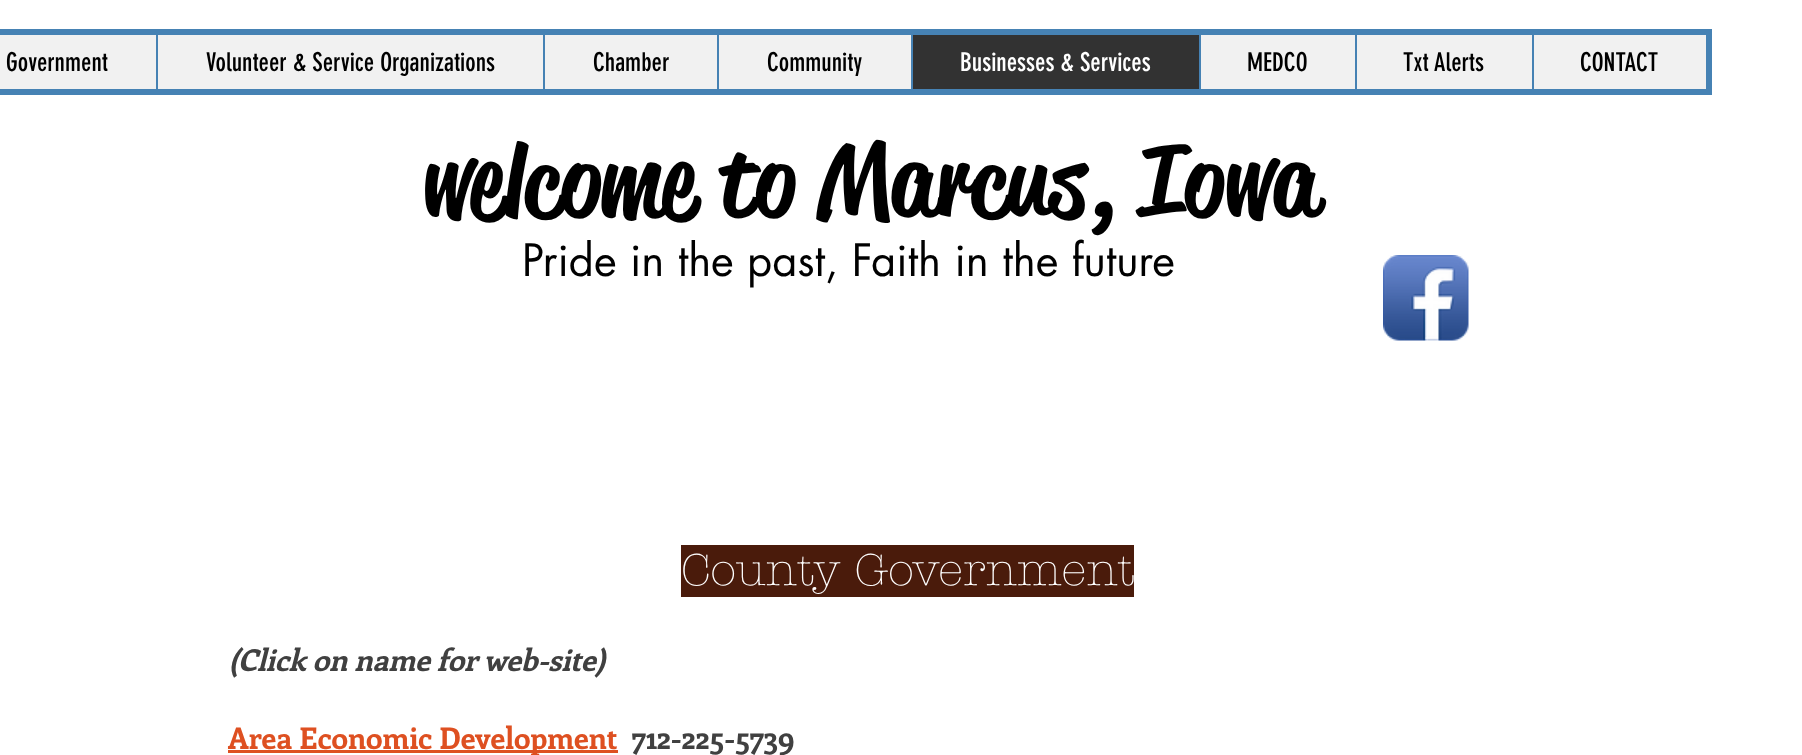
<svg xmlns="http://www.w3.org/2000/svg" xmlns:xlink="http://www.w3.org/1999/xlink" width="1802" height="755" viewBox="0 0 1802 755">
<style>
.cls-1{font:25.5px 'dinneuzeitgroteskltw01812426';fill:#000000}
.cls-2{font:25.5px 'dinneuzeitgroteskltw01812426';fill:#ffffff}
.cls-3{font:500 99px 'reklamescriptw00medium';fill:#000000}
.cls-4{font:43.5px futura;fill:#000000}
.cls-5{font:300 45px 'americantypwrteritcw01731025';fill:#ffffff}
.cls-6{font:italic bold 30px Enriqueta;fill:#404040}
.cls-7{font:bold 30px Enriqueta;fill:#de5021}
.cls-8{font:bold 30px Enriqueta;fill:#404040}
</style>
<rect width="100%" height="100%" fill="#ffffff"/>
<rect fill="#f1f1f1" stroke="#4682b4" stroke-width="6" x="-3" y="32" width="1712" height="60"/>
<rect fill="#4682b4" x="156" y="35" width="2" height="54"/>
<rect fill="#4682b4" x="543" y="35" width="2" height="54"/>
<rect fill="#4682b4" x="717" y="35" width="2" height="54"/>
<rect fill="#323232" x="913" y="35" width="286" height="54"/>
<rect fill="#4682b4" x="911" y="35" width="2" height="54"/>
<rect fill="#4682b4" x="1199" y="35" width="2" height="54"/>
<rect fill="#4682b4" x="1355" y="35" width="2" height="54"/>
<rect fill="#4682b4" x="1532" y="35" width="2" height="54"/>
<image xlink:href="image0.png" x="1383" y="255" width="86" height="86"/>
<rect fill="#4a1b0b" x="681" y="545" width="453" height="52"/>
<rect fill="#de5021" x="228" y="750" width="390" height="3"/>
<text class="cls-1" x="6" y="71">Government</text>
<text class="cls-1" x="206" y="71">Volunteer &amp; Service Organizations</text>
<text class="cls-1" x="593" y="71">Chamber</text>
<text class="cls-1" x="767" y="71">Community</text>
<text class="cls-2" x="960" y="71">Businesses &amp; Services</text>
<text class="cls-1" x="1247" y="71">MEDCO</text>
<text class="cls-1" x="1403" y="71">Txt Alerts</text>
<text class="cls-1" x="1580" y="71">CONTACT</text>
<text class="cls-3" x="422" y="215">welcome to Marcus, Iowa</text>
<text class="cls-4" x="522" y="276">Pride in the past, Faith in the future</text>
<text class="cls-5" x="681" y="585">County Government</text>
<text class="cls-6" x="228" y="671">(Click on name for web-site)</text>
<text class="cls-7" x="228" y="749">Area Economic Development</text>
<text class="cls-8" x="632" y="749">712-225-5739</text>
</svg>
